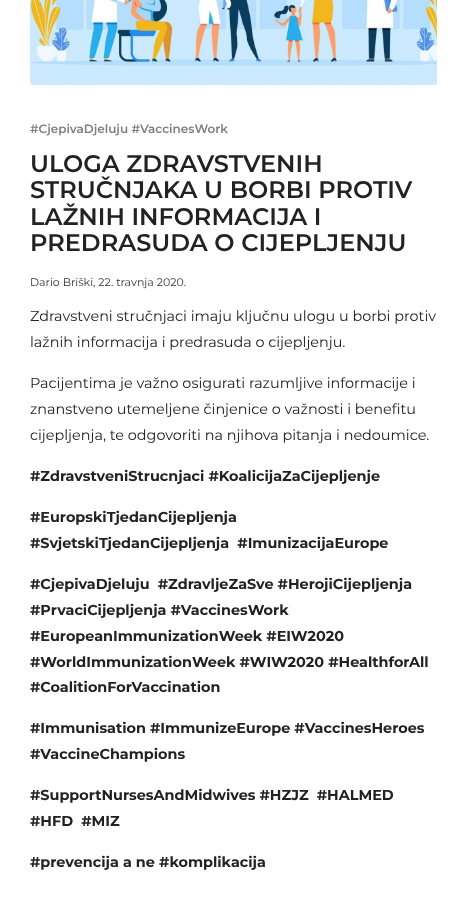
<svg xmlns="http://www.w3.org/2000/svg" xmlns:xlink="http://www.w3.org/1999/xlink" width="467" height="898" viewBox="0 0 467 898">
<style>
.cls-1{font:600 12px Montserrat;fill:#7e7e7e}
.cls-2{font:600 24px Montserrat;fill:#222222}
.cls-3{font:11px Montserrat;fill:#333333}
.cls-4{font:14.4px Montserrat;fill:#222222}
.cls-5{font:bold 14.4px Montserrat;fill:#222222}
</style>
<rect width="100%" height="100%" fill="#ffffff"/>
<image xlink:href="image0.png" x="30" y="0" width="407" height="85"/>
<text class="cls-1" x="30" y="133">#CjepivaDjeluju #VaccinesWork</text>
<text class="cls-2"><tspan x="30" y="172">ULOGA ZDRAVSTVENIH</tspan><tspan x="30" y="198">STRUČNJAKA U BORBI PROTIV</tspan><tspan x="30" y="225">LAŽNIH INFORMACIJA I</tspan><tspan x="30" y="251">PREDRASUDA O CIJEPLJENJU</tspan></text>
<text class="cls-3" x="30" y="286">Dario Briški, 22. travnja 2020.</text>
<text class="cls-4"><tspan x="30" y="321">Zdravstveni stručnjaci imaju ključnu ulogu u borbi protiv</tspan><tspan x="30" y="347">lažnih informacija i predrasuda o cijepljenju.</tspan></text>
<text class="cls-4"><tspan x="30" y="388">Pacijentima je važno osigurati razumljive informacije i</tspan><tspan x="30" y="414">znanstveno utemeljene činjenice o važnosti i benefitu</tspan><tspan x="30" y="440">cijepljenja, te odgovoriti na njihova pitanja i nedoumice.</tspan></text>
<text class="cls-5" x="30" y="481">#ZdravstveniStrucnjaci #KoalicijaZaCijepljenje</text>
<text class="cls-5" xml:space="preserve"><tspan x="30" y="522">#EuropskiTjedanCijepljenja</tspan><tspan x="30" y="548">#SvjetskiTjedanCijepljenja  #ImunizacijaEurope</tspan></text>
<text class="cls-5" xml:space="preserve"><tspan x="30" y="589">#CjepivaDjeluju  #ZdravljeZaSve #HerojiCijepljenja</tspan><tspan x="30" y="615">#PrvaciCijepljenja #VaccinesWork</tspan><tspan x="30" y="641">#EuropeanImmunizationWeek #EIW2020</tspan><tspan x="30" y="667">#WorldImmunizationWeek #WIW2020 #HealthforAll</tspan><tspan x="30" y="692">#CoalitionForVaccination</tspan></text>
<text class="cls-5"><tspan x="30" y="733">#Immunisation #ImmunizeEurope #VaccinesHeroes</tspan><tspan x="30" y="759">#VaccineChampions</tspan></text>
<text class="cls-5" xml:space="preserve"><tspan x="30" y="800">#SupportNursesAndMidwives #HZJZ  #HALMED</tspan><tspan x="30" y="826">#HFD  #MIZ</tspan></text>
<text class="cls-5" x="30" y="867">#prevencija a ne #komplikacija</text>
</svg>
